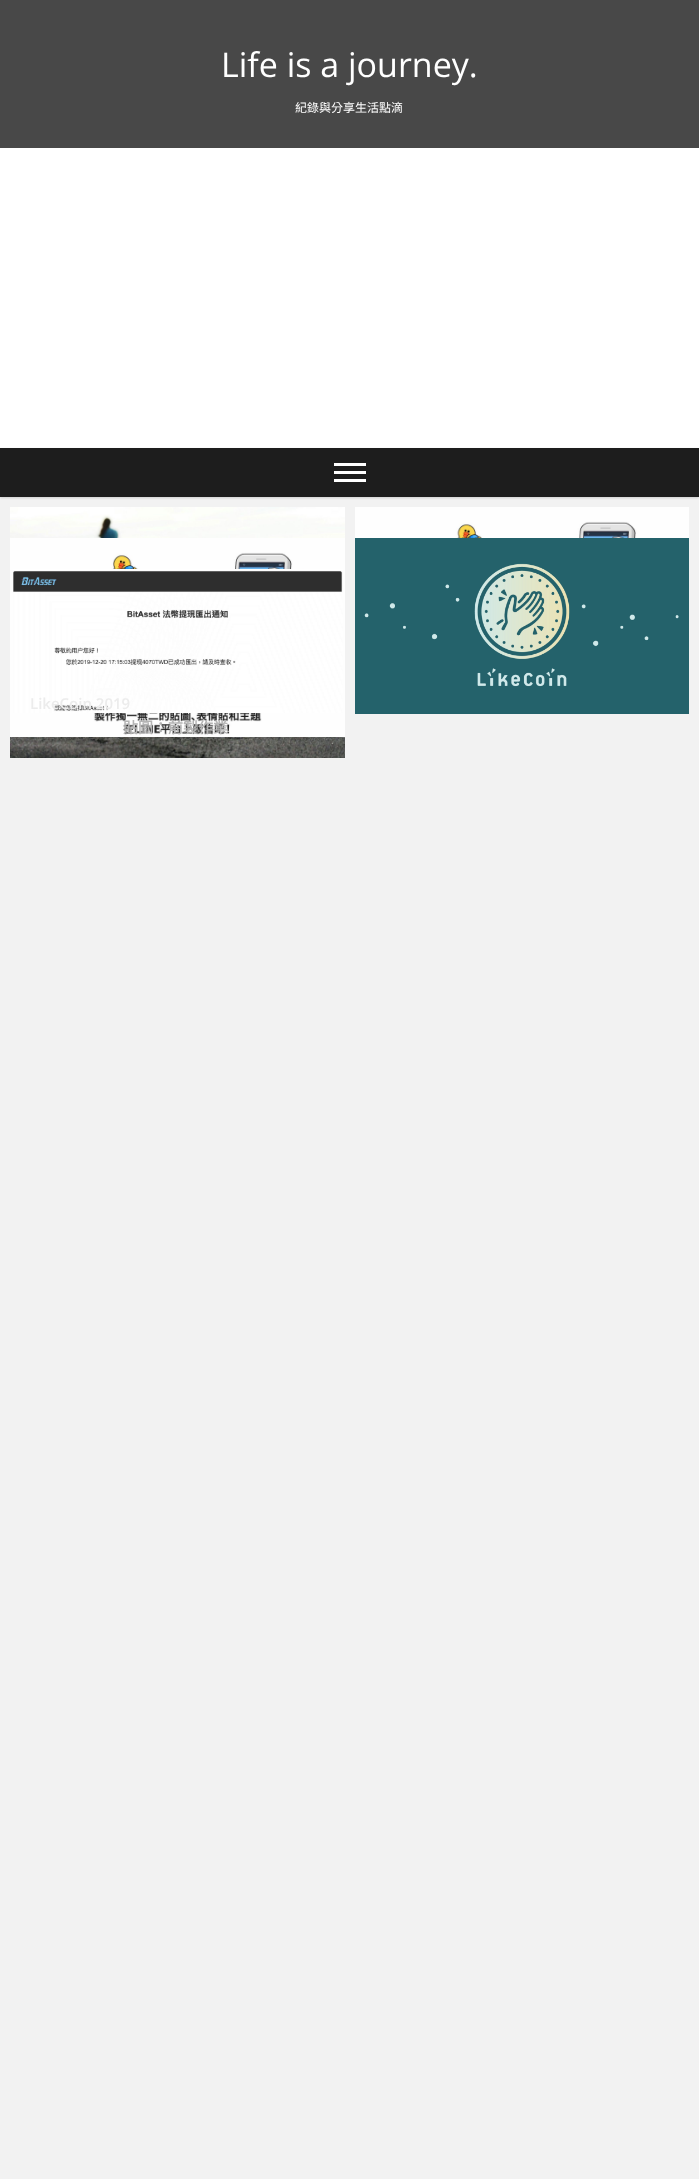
<svg xmlns="http://www.w3.org/2000/svg" xmlns:xlink="http://www.w3.org/1999/xlink" width="699" height="2179" viewBox="0 0 699 2179">
<style>
.cls-1{font:34px Open Sans;fill:#ffffff}
.cls-2{font:12px Noto Sans CJK TC;fill:#ffffff}
.cls-3{font:600 15px Open Sans;fill:#ececec}
.cls-4{font:bold 15px Noto Sans CJK TC;fill:#b4b4b4}
</style>
<rect width="100%" height="100%" fill="#ffffff"/>
<rect fill="#484848" x="0" y="0" width="699" height="148"/>
<rect fill="#f2f2f2" x="0" y="497" width="699" height="1682"/>
<rect fill="#000000" fill-opacity="0.15" filter="blur(1px)" x="0" y="449" width="699" height="49"/>
<rect fill="#1d1d1d" x="0" y="448" width="699" height="49"/>
<rect fill="#ffffff" x="334" y="463" width="32" height="3"/>
<rect fill="#ffffff" x="334" y="471" width="32" height="3"/>
<rect fill="#ffffff" x="334" y="479" width="32" height="3"/>
<image xlink:href="image0.png" x="10" y="507" width="335" height="251"/>
<image xlink:href="image1.png" x="355" y="507" width="334" height="31"/>
<image xlink:href="image4.png" x="10" y="538" width="335" height="199"/>
<image xlink:href="image2.png" x="13" y="569" width="330" height="144"/>
<image xlink:href="image3.png" x="355" y="538" width="334" height="176"/>
<text class="cls-1" x="221" y="77">Life is a journey.</text>
<text class="cls-2" x="295" y="112">紀錄與分享生活點滴</text>
<text class="cls-3" x="30" y="709">LikeCoin 2019</text>
<text class="cls-4" x="123" y="733">貼圖：前製作業</text>
</svg>
